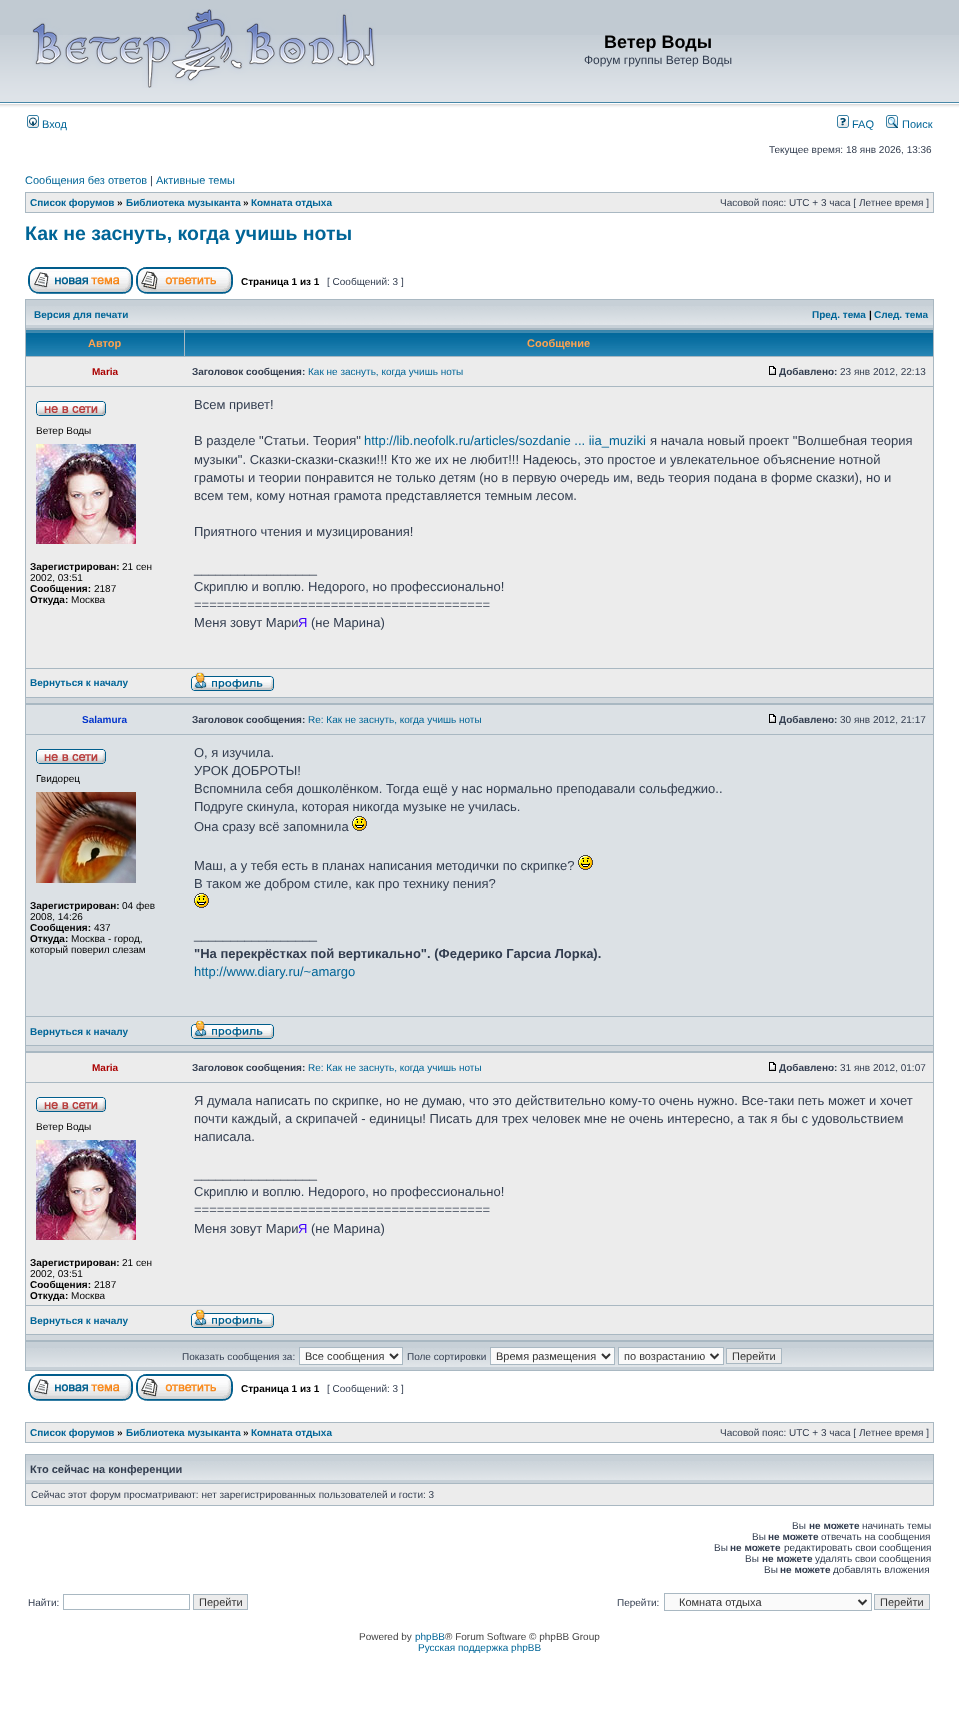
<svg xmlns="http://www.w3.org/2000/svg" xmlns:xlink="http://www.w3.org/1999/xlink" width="959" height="1711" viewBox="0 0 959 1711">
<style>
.cls-1{font:bold 18px Liberation Sans;fill:#000000}
.cls-2{font:12px Liberation Sans;fill:#323d4f}
.cls-3{font:11px Liberation Sans;fill:#006597}
.cls-4{font:10px Liberation Sans;fill:#323d4f}
.cls-5{font:11px Liberation Sans;fill:#323d4f}
.cls-6{font:bold 10px Liberation Sans;fill:#006597}
.cls-7{font:bold 10px Liberation Sans;fill:#000000}
.cls-8{font:bold 19.5px Liberation Sans;fill:#006597}
.cls-9{font:bold 11px Liberation Sans;fill:#ffa34f}
.cls-10{font:bold 10px Liberation Sans;fill:#aa0000}
.cls-11{font:bold 10px Liberation Sans;fill:#323d4f}
.cls-12{font:10px Liberation Sans;fill:#006597}
.cls-13{font:10px Liberation Sans;fill:#000000}
.cls-14{font:13px Liberation Sans;fill:#323d4f}
.cls-15{font:13px Liberation Sans;fill:#006597}
.cls-16{font:13px Liberation Sans;fill:#4000ff}
.cls-17{font:bold 10px Liberation Sans;fill:#0033cc}
.cls-18{font:bold 13px Liberation Sans;fill:#323d4f}
.cls-19{font:11px Liberation Sans;fill:#333333}
.cls-20{font:bold 11px Liberation Sans;fill:#323d4f}
.cls-21{font:10px Liberation Sans;fill:#444444}
</style>
<rect width="100%" height="100%" fill="#ffffff"/>
<rect fill="#c1cad2" x="0" y="0" width="959" height="35"/>
<image xlink:href="image0.png" x="0" y="35" width="959" height="78"/>
<image xlink:href="image1.png" x="32" y="9" width="344" height="79"/>
<image xlink:href="image2.png" x="27" y="115" width="12" height="13"/>
<image xlink:href="image3.png" x="837" y="115" width="12" height="13"/>
<image xlink:href="image4.png" x="886" y="115" width="12" height="13"/>
<rect fill="#a9b8c2" x="25" y="192" width="909" height="21"/>
<rect fill="#ececec" x="26" y="193" width="907" height="19"/>
<image xlink:href="image5.png" x="28" y="267" width="105" height="27"/>
<image xlink:href="image6.png" x="136" y="267" width="97" height="27"/>
<rect fill="#a9b8c2" x="25" y="299" width="909" height="1072"/>
<rect fill="#c7d0d7" x="26" y="300" width="907" height="28"/>
<image xlink:href="image7.png" x="26" y="306" width="907" height="19"/>
<image xlink:href="image8.png" x="26" y="330" width="158" height="26"/>
<image xlink:href="image9.png" x="185" y="330" width="748" height="26"/>
<rect fill="#ececec" x="26" y="357" width="907" height="29"/>
<image xlink:href="image10.png" x="769" y="366" width="7" height="9"/>
<rect fill="#ececec" x="26" y="387" width="907" height="281"/>
<image xlink:href="image11.png" x="36" y="401" width="70" height="15"/>
<image xlink:href="image12.png" x="36" y="444" width="100" height="100"/>
<rect fill="#ececec" x="26" y="669" width="907" height="28"/>
<image xlink:href="image13.png" x="191" y="672" width="83" height="19"/>
<rect fill="#d1d7dc" x="26" y="698" width="907" height="5"/>
<rect fill="#dce1e5" x="26" y="705" width="907" height="29"/>
<image xlink:href="image14.png" x="769" y="714" width="7" height="9"/>
<rect fill="#dce1e5" x="26" y="735" width="907" height="281"/>
<image xlink:href="image15.png" x="36" y="749" width="70" height="15"/>
<image xlink:href="image16.png" x="36" y="792" width="100" height="91"/>
<image xlink:href="image17.png" x="352" y="816" width="15" height="15"/>
<image xlink:href="image17.png" x="578" y="855" width="15" height="15"/>
<image xlink:href="image17.png" x="194" y="893" width="15" height="15"/>
<rect fill="#dce1e5" x="26" y="1017" width="907" height="28"/>
<image xlink:href="image18.png" x="191" y="1020" width="83" height="19"/>
<rect fill="#d1d7dc" x="26" y="1046" width="907" height="5"/>
<rect fill="#ececec" x="26" y="1053" width="907" height="29"/>
<image xlink:href="image10.png" x="769" y="1062" width="7" height="9"/>
<rect fill="#ececec" x="26" y="1083" width="907" height="222"/>
<image xlink:href="image11.png" x="36" y="1097" width="70" height="15"/>
<image xlink:href="image12.png" x="36" y="1140" width="100" height="100"/>
<rect fill="#ececec" x="26" y="1306" width="907" height="28"/>
<image xlink:href="image13.png" x="191" y="1309" width="83" height="19"/>
<rect fill="#d1d7dc" x="26" y="1335" width="907" height="5"/>
<rect fill="#c7d0d7" x="26" y="1342" width="907" height="28"/>
<image xlink:href="image7.png" x="26" y="1348" width="907" height="19"/>
<rect fill="#fafafa" stroke="#a9b8c2" x="299.5" y="1347.5" width="103" height="17"/>
<path fill="none" stroke="#333333" stroke-width="2" d="M390 1354L394 1358L398 1354"/>
<rect fill="#fafafa" stroke="#a9b8c2" x="490.5" y="1347.5" width="124" height="17"/>
<path fill="none" stroke="#333333" stroke-width="2" d="M602 1354L606 1358L610 1354"/>
<rect fill="#fafafa" stroke="#a9b8c2" x="618.5" y="1347.5" width="105" height="17"/>
<path fill="none" stroke="#333333" stroke-width="2" d="M710.5 1354L714.5 1358L718.5 1354"/>
<rect fill="#ececec" stroke="#a9b8c2" x="726.5" y="1348.5" width="55" height="15"/>
<image xlink:href="image5.png" x="28" y="1374" width="105" height="27"/>
<image xlink:href="image6.png" x="136" y="1374" width="97" height="27"/>
<rect fill="#a9b8c2" x="25" y="1422" width="909" height="21"/>
<rect fill="#ececec" x="26" y="1423" width="907" height="19"/>
<rect fill="#a9b8c2" x="25" y="1454" width="909" height="52"/>
<rect fill="#c7d0d7" x="26" y="1455" width="907" height="28"/>
<image xlink:href="image7.png" x="26" y="1461" width="907" height="19"/>
<rect fill="#ececec" x="26" y="1484" width="907" height="21"/>
<rect fill="none" stroke="#a9b8c2" x="63.5" y="1594.5" width="126" height="15"/>
<rect fill="#ececec" stroke="#a9b8c2" x="193.5" y="1594.5" width="54" height="15"/>
<rect fill="#fafafa" stroke="#a9b8c2" x="664.5" y="1593.5" width="207" height="17"/>
<path fill="none" stroke="#333333" stroke-width="2" d="M858.5 1600L862.5 1604L866.5 1600"/>
<rect fill="#ececec" stroke="#a9b8c2" x="874.5" y="1594.5" width="55" height="15"/>
<text class="cls-1" x="604" y="48">Ветер Воды</text>
<text class="cls-2" x="584" y="64">Форум группы Ветер Воды</text>
<text class="cls-3" x="42" y="128">Вход</text>
<text class="cls-3" x="852" y="128">FAQ</text>
<text class="cls-3" x="902" y="128">Поиск</text>
<text class="cls-4" x="769" y="153">Текущее время: 18 янв 2026, 13:36</text>
<text class="cls-3" x="25" y="184">Сообщения без ответов</text>
<text class="cls-5" x="150" y="184">|</text>
<text class="cls-3" x="156" y="184">Активные темы</text>
<text class="cls-6" x="30" y="206">Список форумов</text>
<text class="cls-7" x="117" y="206">»</text>
<text class="cls-6" x="126" y="206">Библиотека музыканта</text>
<text class="cls-7" x="243" y="206">»</text>
<text class="cls-6" x="251" y="206">Комната отдыха</text>
<text class="cls-4" x="720" y="206">Часовой пояс: UTC + 3 часа [ Летнее время ]</text>
<text class="cls-8" x="25" y="240">Как не заснуть, когда учишь ноты</text>
<text class="cls-7" x="241" y="285">Страница 1 из 1</text>
<text class="cls-4" x="327" y="285">[ Сообщений: 3 ]</text>
<text class="cls-6" x="34" y="318">Версия для печати</text>
<text class="cls-6" x="812" y="318">Пред. тема</text>
<text class="cls-7" x="869" y="318">|</text>
<text class="cls-6" x="874" y="318">След. тема</text>
<text class="cls-9" x="88" y="347">Автор</text>
<text class="cls-9" x="527" y="347">Сообщение</text>
<text class="cls-10" x="92" y="375">Maria</text>
<text class="cls-11" x="192" y="375">Заголовок сообщения:</text>
<text class="cls-12" x="308" y="375">Как не заснуть, когда учишь ноты</text>
<text class="cls-11" x="779" y="375">Добавлено:</text>
<text class="cls-4" x="840" y="375">23 янв 2012, 22:13</text>
<text class="cls-13" x="36" y="434">Ветер Воды</text>
<text class="cls-7" x="30" y="570">Зарегистрирован:</text>
<text class="cls-13" x="122" y="570">21 сен</text>
<text class="cls-13" x="30" y="581">2002, 03:51</text>
<text class="cls-7" x="30" y="592">Сообщения:</text>
<text class="cls-13" x="94" y="592">2187</text>
<text class="cls-7" x="30" y="603">Откуда:</text>
<text class="cls-13" x="71" y="603">Москва</text>
<text class="cls-14" x="194" y="409">Всем привет!</text>
<text class="cls-14" x="194" y="445">В разделе "Статьи. Теория"</text>
<text class="cls-15" x="364" y="445">http://lib.neofolk.ru/articles/sozdanie ... iia_muziki</text>
<text class="cls-14" x="650" y="445">я начала новый проект "Волшебная теория</text>
<text class="cls-14"><tspan x="194" y="464">музыки". Сказки-сказки-сказки!!! Кто же их не любит!!! Надеюсь, это простое и увлекательное объяснение нотной</tspan><tspan x="194" y="482">грамоты и теории понравится не только детям (но в первую очередь им, ведь теория подана в форме сказки), но и</tspan><tspan x="194" y="500">всем тем, кому нотная грамота представляется темным лесом.</tspan></text>
<text class="cls-14" x="194" y="536">Приятного чтения и музицирования!</text>
<text class="cls-14"><tspan x="194" y="573">_________________</tspan><tspan x="194" y="591">Скриплю и воплю. Недорого, но профессионально!</tspan><tspan x="194" y="609">=======================================</tspan><tspan x="194" y="627">Меня зовут Мари</tspan></text>
<text class="cls-16" x="298" y="627">Я</text>
<text class="cls-14" x="311" y="627">(не Марина)</text>
<text class="cls-6" x="30" y="686">Вернуться к началу</text>
<text class="cls-17" x="82" y="723">Salamura</text>
<text class="cls-11" x="192" y="723">Заголовок сообщения:</text>
<text class="cls-12" x="308" y="723">Re: Как не заснуть, когда учишь ноты</text>
<text class="cls-11" x="779" y="723">Добавлено:</text>
<text class="cls-4" x="840" y="723">30 янв 2012, 21:17</text>
<text class="cls-13" x="36" y="782">Гвидорец</text>
<text class="cls-7" x="30" y="909">Зарегистрирован:</text>
<text class="cls-13" x="122" y="909">04 фев</text>
<text class="cls-13" x="30" y="920">2008, 14:26</text>
<text class="cls-7" x="30" y="931">Сообщения:</text>
<text class="cls-13" x="94" y="931">437</text>
<text class="cls-7" x="30" y="942">Откуда:</text>
<text class="cls-13" x="71" y="942">Москва - город,</text>
<text class="cls-13" x="30" y="953">который поверил слезам</text>
<text class="cls-14"><tspan x="194" y="757">О, я изучила.</tspan><tspan x="194" y="775">УРОК ДОБРОТЫ!</tspan><tspan x="194" y="793">Вспомнила себя дошколёнком. Тогда ещё у нас нормально преподавали сольфеджио..</tspan><tspan x="194" y="811">Подруге скинула, которая никогда музыке не училась.</tspan><tspan x="194" y="831">Она сразу всё запомнила</tspan></text>
<text class="cls-14"><tspan x="194" y="870">Маш, а у тебя есть в планах написания методички по скрипке?</tspan><tspan x="194" y="888">В таком же добром стиле, как про технику пения?</tspan></text>
<text class="cls-14" x="194" y="939">_________________</text>
<text class="cls-18" x="194" y="958">"На перекрёстках пой вертикально". (Федерико Гарсиа Лорка).</text>
<text class="cls-15" x="194" y="976">http://www.diary.ru/~amargo</text>
<text class="cls-6" x="30" y="1035">Вернуться к началу</text>
<text class="cls-10" x="92" y="1071">Maria</text>
<text class="cls-11" x="192" y="1071">Заголовок сообщения:</text>
<text class="cls-12" x="308" y="1071">Re: Как не заснуть, когда учишь ноты</text>
<text class="cls-11" x="779" y="1071">Добавлено:</text>
<text class="cls-4" x="840" y="1071">31 янв 2012, 01:07</text>
<text class="cls-13" x="36" y="1130">Ветер Воды</text>
<text class="cls-7" x="30" y="1266">Зарегистрирован:</text>
<text class="cls-13" x="122" y="1266">21 сен</text>
<text class="cls-13" x="30" y="1277">2002, 03:51</text>
<text class="cls-7" x="30" y="1288">Сообщения:</text>
<text class="cls-13" x="94" y="1288">2187</text>
<text class="cls-7" x="30" y="1299">Откуда:</text>
<text class="cls-13" x="71" y="1299">Москва</text>
<text class="cls-14"><tspan x="194" y="1105">Я думала написать по скрипке, но не думаю, что это действительно кому-то очень нужно. Все-таки петь может и хочет</tspan><tspan x="194" y="1123">почти каждый, а скрипачей - единицы! Писать для трех человек мне не очень интересно, а так я бы с удовольствием</tspan><tspan x="194" y="1141">написала.</tspan></text>
<text class="cls-14"><tspan x="194" y="1178">_________________</tspan><tspan x="194" y="1196">Скриплю и воплю. Недорого, но профессионально!</tspan><tspan x="194" y="1214">=======================================</tspan><tspan x="194" y="1233">Меня зовут Мари</tspan></text>
<text class="cls-16" x="298" y="1233">Я</text>
<text class="cls-14" x="311" y="1233">(не Марина)</text>
<text class="cls-6" x="30" y="1324">Вернуться к началу</text>
<text class="cls-4" x="182" y="1360">Показать сообщения за:</text>
<text class="cls-19" x="305" y="1360">Все сообщения</text>
<text class="cls-4" x="407" y="1360">Поле сортировки</text>
<text class="cls-19" x="496" y="1360">Время размещения</text>
<text class="cls-19" x="624" y="1360">по возрастанию</text>
<text class="cls-19" x="732" y="1360">Перейти</text>
<text class="cls-7" x="241" y="1392">Страница 1 из 1</text>
<text class="cls-4" x="327" y="1392">[ Сообщений: 3 ]</text>
<text class="cls-6" x="30" y="1436">Список форумов</text>
<text class="cls-7" x="117" y="1436">»</text>
<text class="cls-6" x="126" y="1436">Библиотека музыканта</text>
<text class="cls-7" x="243" y="1436">»</text>
<text class="cls-6" x="251" y="1436">Комната отдыха</text>
<text class="cls-4" x="720" y="1436">Часовой пояс: UTC + 3 часа [ Летнее время ]</text>
<text class="cls-20" x="30" y="1473">Кто сейчас на конференции</text>
<text class="cls-4" x="31" y="1498">Сейчас этот форум просматривают: нет зарегистрированных пользователей и гости: 3</text>
<text class="cls-4" x="792" y="1529">Вы</text>
<text class="cls-11" x="809" y="1529">не можете</text>
<text class="cls-4" x="862" y="1529">начинать темы</text>
<text class="cls-4" x="752" y="1540">Вы</text>
<text class="cls-11" x="768" y="1540">не можете</text>
<text class="cls-4" x="821" y="1540">отвечать на сообщения</text>
<text class="cls-4" x="714" y="1551">Вы</text>
<text class="cls-11" x="730" y="1551">не можете</text>
<text class="cls-4" x="784" y="1551">редактировать свои сообщения</text>
<text class="cls-4" x="745" y="1562">Вы</text>
<text class="cls-11" x="762" y="1562">не можете</text>
<text class="cls-4" x="815" y="1562">удалять свои сообщения</text>
<text class="cls-4" x="764" y="1573">Вы</text>
<text class="cls-11" x="780" y="1573">не можете</text>
<text class="cls-4" x="833" y="1573">добавлять вложения</text>
<text class="cls-4" x="28" y="1606">Найти:</text>
<text class="cls-19" x="199" y="1606">Перейти</text>
<text class="cls-4" x="617" y="1606">Перейти:</text>
<text class="cls-19" x="679" y="1606">Комната отдыха</text>
<text class="cls-19" x="880" y="1606">Перейти</text>
<text class="cls-21" x="359" y="1640">Powered by</text>
<text class="cls-12" x="415" y="1640">phpBB</text>
<text class="cls-21" x="445" y="1640">® Forum Software © phpBB Group</text>
<text class="cls-12" x="418" y="1651">Русская поддержка phpBB</text>
</svg>
